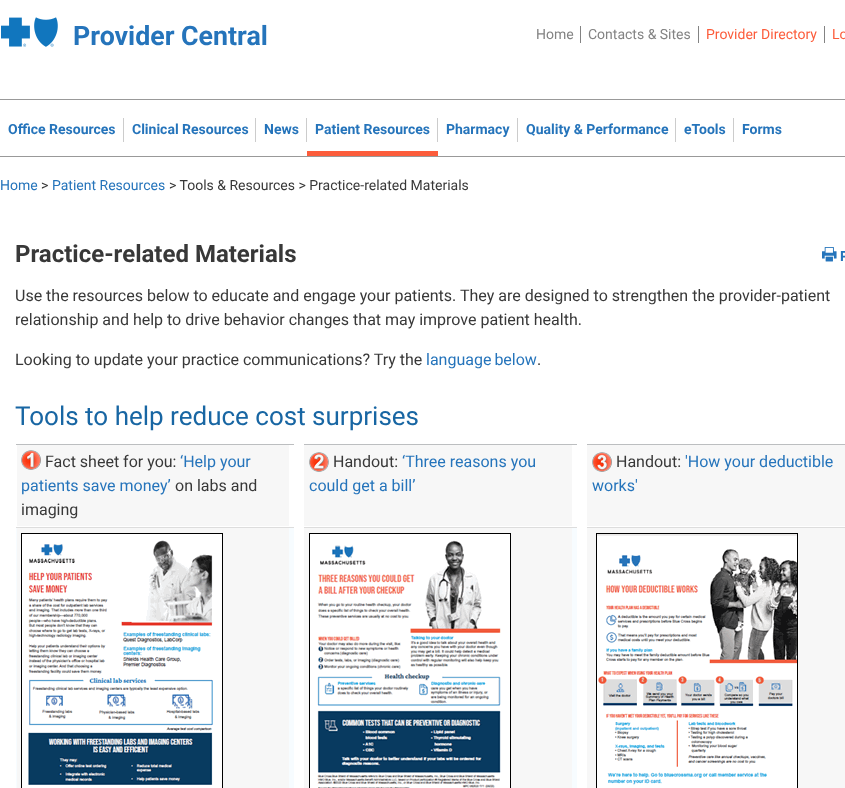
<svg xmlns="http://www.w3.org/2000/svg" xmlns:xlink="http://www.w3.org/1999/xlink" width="845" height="788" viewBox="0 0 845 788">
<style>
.cls-1{font:bold 26.75px Roboto;fill:#2574bb}
.cls-2{font:14px Roboto;fill:#838383}
.cls-3{font:14px Roboto;fill:#fc5c3b}
.cls-4{font:bold 14px Roboto;fill:#2574bb}
.cls-5{font:14px Roboto;fill:#2574bb}
.cls-6{font:14px Roboto;fill:#383838}
.cls-7{font:bold 24px Roboto;fill:#383838}
.cls-8{font:16px Roboto;fill:#383838}
.cls-9{font:16px Roboto;fill:#2574bb}
.cls-10{font:26px Roboto;fill:#1866a3}
</style>
<rect width="100%" height="100%" fill="#ffffff"/>
<image xlink:href="image0.png" x="1" y="17" width="57" height="30"/>
<rect fill="#838383" x="580" y="26" width="1" height="17"/>
<rect fill="#838383" x="698" y="26" width="1" height="17"/>
<rect fill="#838383" x="824" y="26" width="1" height="17"/>
<rect fill="#999999" x="0" y="99" width="845" height="1"/>
<rect fill="#999999" x="0" y="156" width="845" height="1"/>
<rect fill="#cccccc" x="123" y="118" width="1" height="24"/>
<rect fill="#cccccc" x="255" y="118" width="1" height="24"/>
<rect fill="#cccccc" x="306" y="118" width="1" height="24"/>
<rect fill="#fc5c3b" x="307" y="151" width="131" height="5"/>
<rect fill="#cccccc" x="437" y="118" width="1" height="24"/>
<rect fill="#cccccc" x="517" y="118" width="1" height="24"/>
<rect fill="#cccccc" x="675" y="118" width="1" height="24"/>
<rect fill="#cccccc" x="733" y="118" width="1" height="24"/>
<image xlink:href="image1.png" x="822" y="247" width="15" height="15"/>
<rect fill="#f7fcff" x="16" y="528" width="561" height="260"/>
<rect fill="#f7f7f7" x="17" y="528" width="272" height="260"/>
<rect fill="#bcbec0" x="15" y="444" width="830" height="1"/>
<rect fill="#dddddd" x="15" y="527" width="830" height="1"/>
<rect fill="#ffffff" x="294" y="444" width="10" height="344"/>
<image xlink:href="image2.png" x="21" y="533" width="202" height="255"/>
<rect fill="#f7f7f7" x="304" y="528" width="268" height="260"/>
<image xlink:href="image3.png" x="309" y="533" width="202" height="255"/>
<rect fill="#f7f7f7" x="587" y="528" width="258" height="260"/>
<image xlink:href="image4.png" x="596" y="533" width="202" height="255"/>
<rect fill="#f7f7f7" x="17" y="445" width="272" height="81"/>
<rect fill="#ffffff" x="15" y="444" width="1" height="84"/>
<image xlink:href="image5.png" x="21" y="450" width="20" height="20"/>
<rect fill="#f7f7f7" x="304" y="445" width="268" height="81"/>
<rect fill="#ffffff" x="577" y="444" width="10" height="84"/>
<image xlink:href="image6.png" x="309" y="452" width="20" height="20"/>
<rect fill="#f7f7f7" x="587" y="445" width="258" height="81"/>
<image xlink:href="image7.png" x="592" y="452" width="20" height="20"/>
<text class="cls-1" x="73" y="45">Provider Central</text>
<text class="cls-2" x="536" y="39">Home</text>
<text class="cls-2" x="588" y="39">Contacts &amp; Sites</text>
<text class="cls-3" x="706" y="39">Provider Directory</text>
<text class="cls-3" x="832" y="39">Lo</text>
<text class="cls-4" x="8" y="134">Office Resources</text>
<text class="cls-4" x="132" y="134">Clinical Resources</text>
<text class="cls-4" x="264" y="134">News</text>
<text class="cls-4" x="315" y="134">Patient Resources</text>
<text class="cls-4" x="446" y="134">Pharmacy</text>
<text class="cls-4" x="526" y="134">Quality &amp; Performance</text>
<text class="cls-4" x="684" y="134">eTools</text>
<text class="cls-4" x="742" y="134">Forms</text>
<text class="cls-5" x="0" y="190">Home</text>
<text class="cls-6" x="41" y="190">&gt;</text>
<text class="cls-5" x="52" y="190">Patient Resources</text>
<text class="cls-6" x="169" y="190">&gt; Tools &amp; Resources &gt; Practice-related Materials</text>
<text class="cls-7" x="15" y="262">Practice-related Materials</text>
<text class="cls-4" x="840" y="261">P</text>
<text class="cls-8"><tspan x="15" y="301">Use the resources below to educate and engage your patients. They are designed to strengthen the provider-patient</tspan><tspan x="15" y="325">relationship and help to drive behavior changes that may improve patient health.</tspan></text>
<text class="cls-8" x="15" y="365">Looking to update your practice communications? Try the</text>
<text class="cls-9" x="426" y="365" word-spacing="-1">language below</text>
<text class="cls-8" x="537" y="365">.</text>
<text class="cls-10" x="15" y="425">Tools to help reduce cost surprises</text>
<text class="cls-8" x="45" y="467">Fact sheet for you:</text>
<text class="cls-9" x="180" y="467">‘Help your</text>
<text class="cls-9" x="21" y="491">patients save money’</text>
<text class="cls-8" x="175" y="491">on labs and</text>
<text class="cls-8" x="21" y="515">imaging</text>
<text class="cls-8" x="333" y="467">Handout:</text>
<text class="cls-9" x="402" y="467">‘Three reasons you</text>
<text class="cls-9" x="309" y="491">could get a bill’</text>
<text class="cls-8" x="616" y="467">Handout:</text>
<text class="cls-9" x="685" y="467">'How your deductible</text>
<text class="cls-9" x="592" y="491">works'</text>
</svg>
